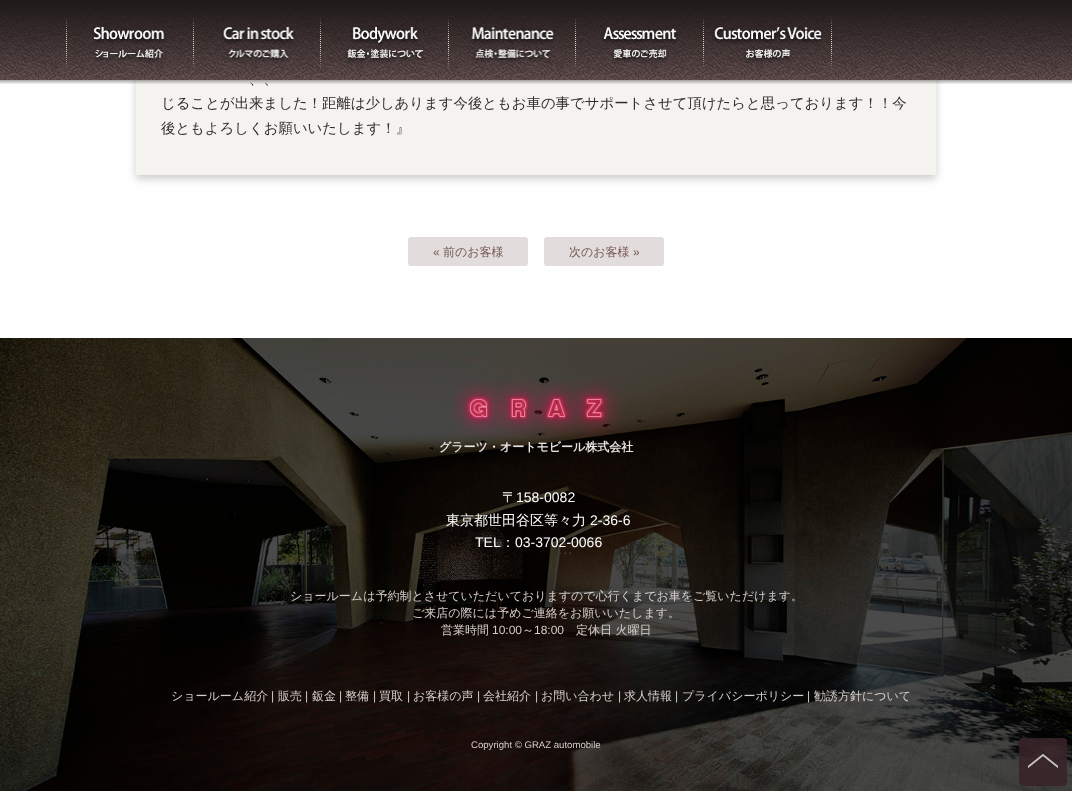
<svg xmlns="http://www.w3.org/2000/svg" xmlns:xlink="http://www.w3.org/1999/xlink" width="1072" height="791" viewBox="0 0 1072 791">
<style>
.cls-1{font:500 14.4px WenQuanYi Zen Hei;fill:#342c2b}
.cls-2{font:12px Liberation Sans;fill:#725551}
.cls-3{font:500 12px WenQuanYi Zen Hei;fill:#725551}
.cls-4{font:bold 12px WenQuanYi Zen Hei;fill:#e7e2e3}
.cls-5{font:500 14px WenQuanYi Zen Hei;fill:#ffffff}
.cls-6{font:14px Liberation Sans;fill:#ffffff}
.cls-7{font:500 12px WenQuanYi Zen Hei;fill:#d6cec9}
.cls-8{font:12px Liberation Sans;fill:#d6cec9}
.cls-9{font:9.6px Liberation Sans;fill:#d6cec9}
</style>
<rect width="100%" height="100%" fill="#ffffff"/>
<rect fill="#cccccc" filter="blur(4px)" x="136" y="-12" width="800" height="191"/>
<rect fill="#f4f3ef" x="136" y="80" width="800" height="95"/>
<rect fill="#e2dddc" x="408" y="237" width="120" height="29" rx="3"/>
<rect fill="#e2dddc" x="544" y="237" width="120" height="29" rx="3"/>
<image xlink:href="image14.png" x="0" y="338" width="1072" height="453"/>
<image xlink:href="image15.png" x="451" y="379" width="171" height="59"/>
<image xlink:href="image16.png" x="1019" y="738" width="48" height="48"/>
<text class="cls-1" x="249" y="84">、、</text>
<image xlink:href="image0.png" x="0" y="0" width="1072" height="84"/>
<image xlink:href="image13.png" x="712" y="27" width="111" height="36"/>
<image xlink:href="image11.png" x="602" y="27" width="76" height="36"/>
<image xlink:href="image9.png" x="470" y="27" width="85" height="36"/>
<image xlink:href="image7.png" x="345" y="27" width="79" height="36"/>
<image xlink:href="image5.png" x="221" y="27" width="74" height="35"/>
<image xlink:href="image3.png" x="92" y="27" width="75" height="35"/>
<image xlink:href="image12.png" x="831" y="17" width="1" height="53"/>
<image xlink:href="image10.png" x="703" y="17" width="1" height="53"/>
<image xlink:href="image8.png" x="575" y="17" width="1" height="53"/>
<image xlink:href="image6.png" x="448" y="17" width="1" height="53"/>
<image xlink:href="image4.png" x="320" y="17" width="1" height="53"/>
<image xlink:href="image2.png" x="193" y="17" width="1" height="53"/>
<image xlink:href="image1.png" x="66" y="17" width="1" height="53"/>
<text class="cls-1"><tspan x="161" y="108">じることが出来ました！距離は少しあります今後ともお車の事でサポートさせて頂けたらと思っております！！今</tspan><tspan x="161" y="133">後ともよろしくお願いいたします！』</tspan></text>
<text class="cls-2" x="433" y="256">«</text>
<text class="cls-3" x="443" y="256">前のお客様</text>
<text class="cls-3" x="569" y="256">次のお客様</text>
<text class="cls-2" x="633" y="256">»</text>
<text class="cls-4" x="439" y="451">グラーツ・オートモビール株式会社</text>
<text class="cls-5" x="502" y="502">〒</text>
<text class="cls-6" x="516" y="502">158-0082</text>
<text class="cls-5" x="446" y="525">東京都世田谷区等々力</text>
<text class="cls-6" x="590" y="525">2-36-6</text>
<text class="cls-6" x="475" y="547">TEL</text>
<text class="cls-5" x="501" y="547">：</text>
<text class="cls-6" x="515" y="547">03-3702-0066</text>
<text class="cls-7" x="290" y="600">ショールームは予約制とさせていただいておりますので心行くまでお車をご覧いただけます。</text>
<text class="cls-7" x="412" y="617">ご来店の際には予めご連絡をお願いいたします。</text>
<text class="cls-7" x="441" y="634">営業時間</text>
<text class="cls-8" x="492" y="634">10:00</text>
<text class="cls-7" x="522" y="634">～</text>
<text class="cls-8" x="534" y="634">18:00</text>
<text class="cls-7" x="576" y="634">定休日 火曜日</text>
<text class="cls-7" x="171" y="700">ショールーム紹介</text>
<text class="cls-8" x="271" y="700">|</text>
<text class="cls-7" x="278" y="700">販売</text>
<text class="cls-8" x="305" y="700">|</text>
<text class="cls-7" x="312" y="700">鈑金</text>
<text class="cls-8" x="339" y="700">|</text>
<text class="cls-7" x="345" y="700">整備</text>
<text class="cls-8" x="373" y="700">|</text>
<text class="cls-7" x="379" y="700">買取</text>
<text class="cls-8" x="407" y="700">|</text>
<text class="cls-7" x="413" y="700">お客様の声</text>
<text class="cls-8" x="477" y="700">|</text>
<text class="cls-7" x="483" y="700">会社紹介</text>
<text class="cls-8" x="535" y="700">|</text>
<text class="cls-7" x="541" y="700">お問い合わせ</text>
<text class="cls-8" x="618" y="700">|</text>
<text class="cls-7" x="624" y="700">求人情報</text>
<text class="cls-8" x="675" y="700">|</text>
<text class="cls-7" x="682" y="700">プライバシーポリシー</text>
<text class="cls-8" x="807" y="700">|</text>
<text class="cls-7" x="814" y="700">勧誘方針について</text>
<text class="cls-9" x="471" y="748">Copyright © GRAZ automobile</text>
</svg>
